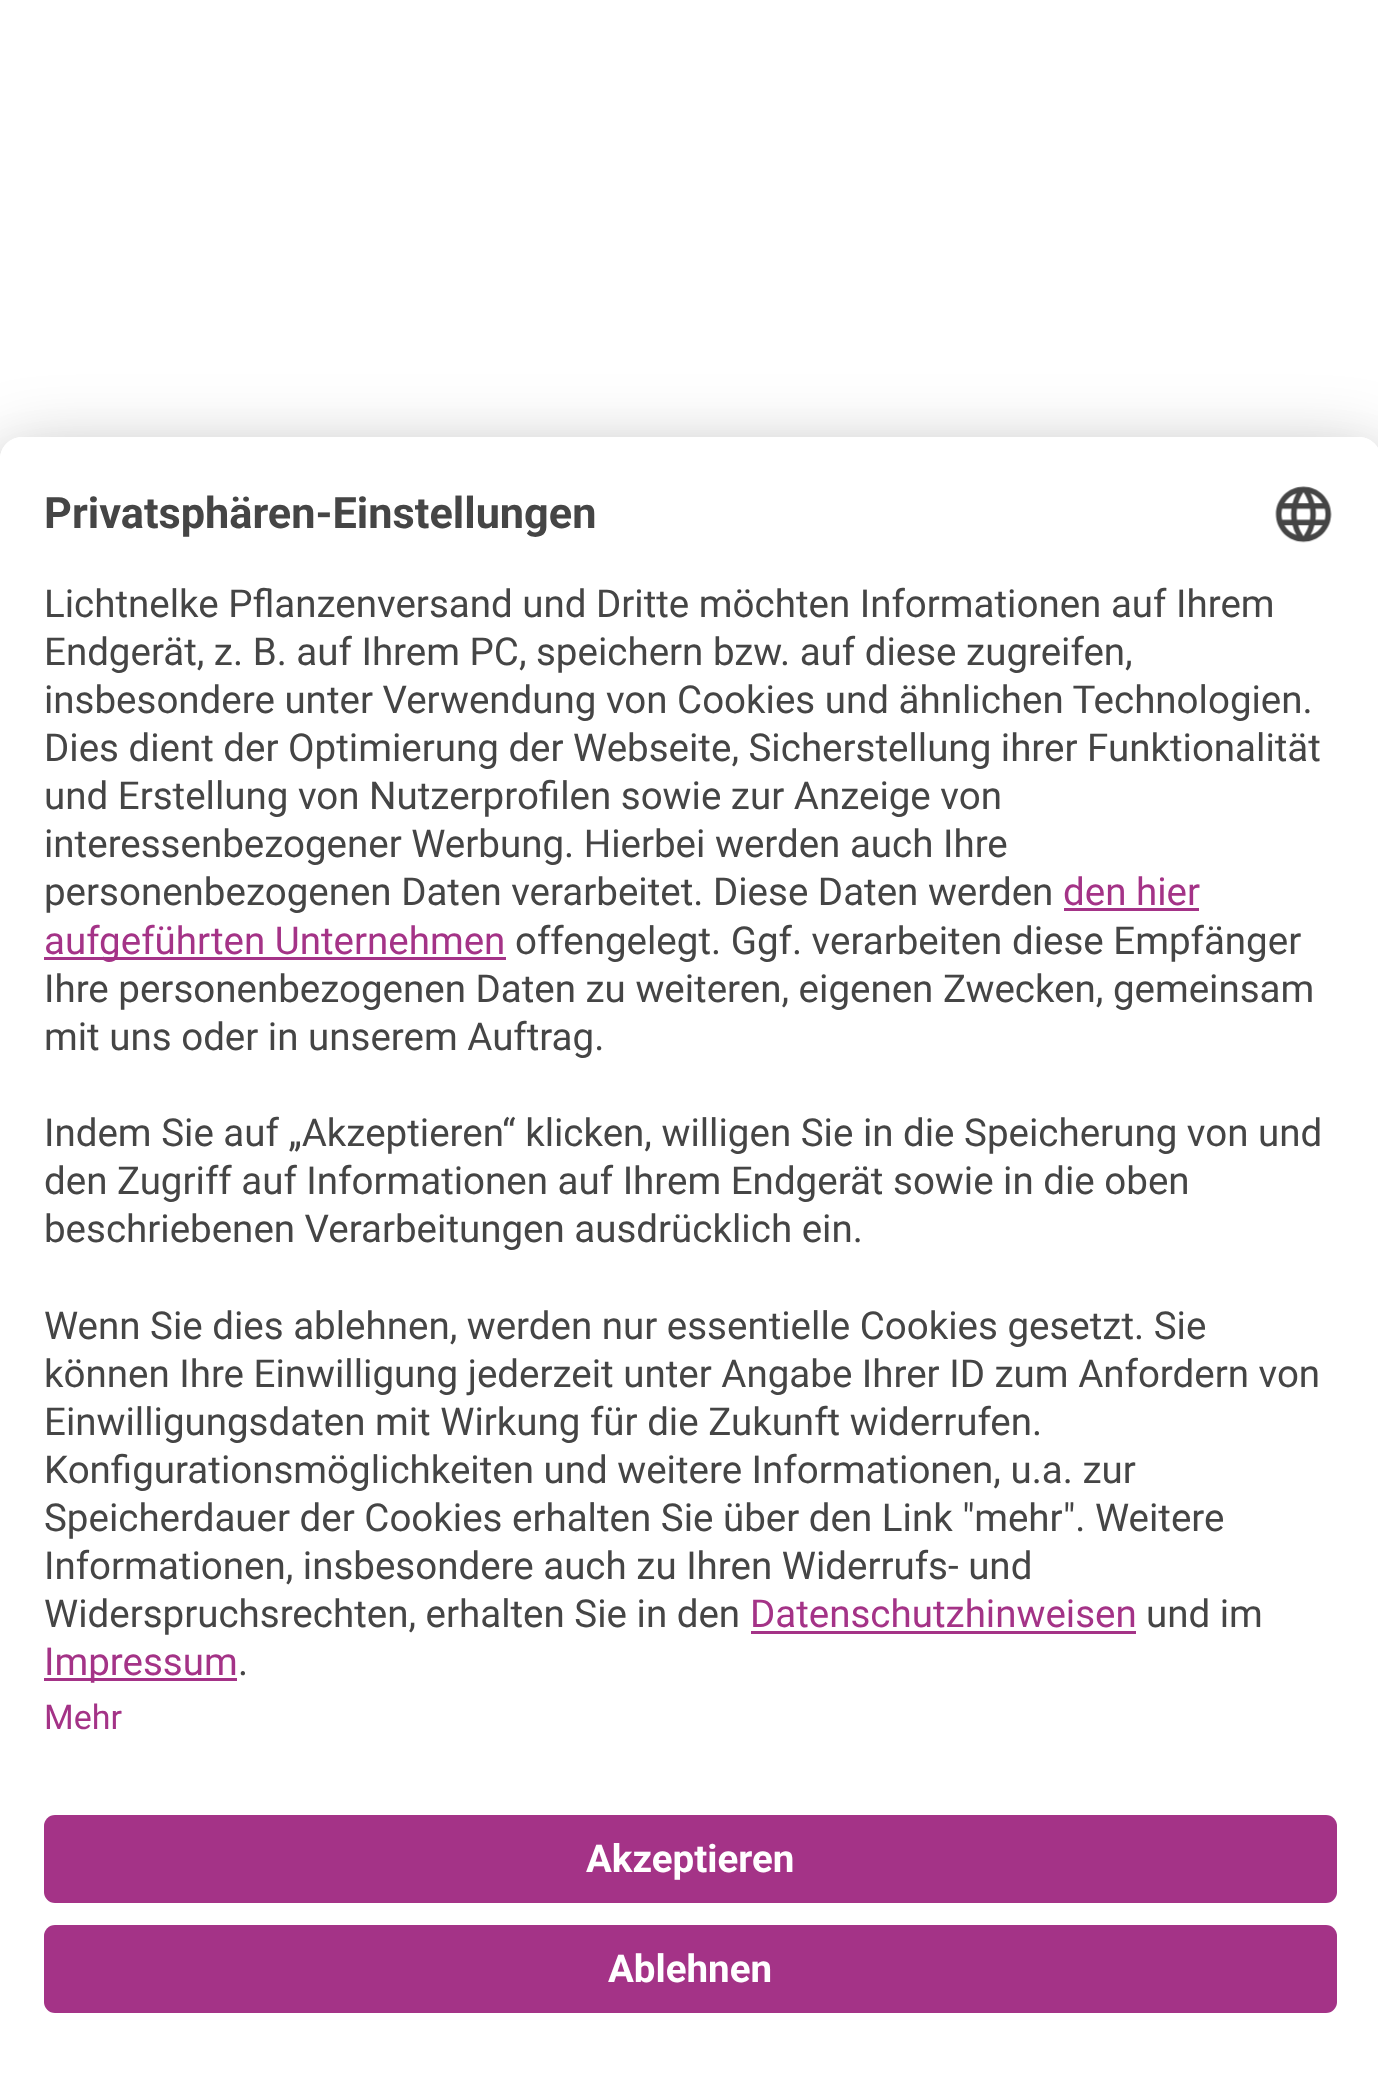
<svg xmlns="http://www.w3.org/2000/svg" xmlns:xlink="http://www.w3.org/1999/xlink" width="1378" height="2089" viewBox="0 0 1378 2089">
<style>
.cls-1{font:bold 43.25px Roboto;fill:#454545}
.cls-2{font:38.5px Roboto;fill:#454545}
.cls-3{font:38.5px Roboto;fill:#a43387}
.cls-4{font:34px Roboto;fill:#a43387}
.cls-5{font:bold 38.5px Roboto;fill:#ffffff}
</style>
<rect width="100%" height="100%" fill="#ffffff"/>
<rect fill="#000000" fill-opacity="0.3" filter="blur(38.5px)" x="0" y="492" width="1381" height="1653" rx="22"/>
<rect fill="#000000" fill-opacity="0.22" filter="blur(36px)" x="0" y="451" width="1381" height="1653" rx="22"/>
<path fill="#ffffff" d="M22 437H1359C1371 437 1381 447 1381 459V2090H0V459C0 447 10 437 22 437Z"/>
<path fill="#ffffff" d="M22 437H1359C1371 437 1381 447 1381 459V1782H0V459C0 447 10 437 22 437Z"/>
<image xlink:href="image0.png" x="1275" y="486" width="57" height="57"/>
<rect fill="#a43387" x="1064" y="908" width="135" height="3"/>
<rect fill="#a43387" x="44" y="957" width="462" height="3"/>
<rect fill="#a43387" x="751" y="1631" width="385" height="3"/>
<rect fill="#a43387" x="44" y="1678" width="193" height="3"/>
<rect fill="#a43387" x="44" y="1815" width="1293" height="88" rx="11"/>
<rect fill="#a43387" x="44" y="1925" width="1293" height="88" rx="11"/>
<text class="cls-1" x="44" y="528">Privatsphären-Einstellungen</text>
<text class="cls-2"><tspan x="44" y="617">Lichtnelke Pflanzenversand und Dritte möchten Informationen auf Ihrem</tspan><tspan x="44" y="665">Endgerät, z. B. auf Ihrem PC, speichern bzw. auf diese zugreifen,</tspan><tspan x="44" y="713">insbesondere unter Verwendung von Cookies und ähnlichen Technologien.</tspan><tspan x="44" y="761">Dies dient der Optimierung der Webseite, Sicherstellung ihrer Funktionalität</tspan><tspan x="44" y="809">und Erstellung von Nutzerprofilen sowie zur Anzeige von</tspan><tspan x="44" y="857">interessenbezogener Werbung. Hierbei werden auch Ihre</tspan><tspan x="44" y="905">personenbezogenen Daten verarbeitet. Diese Daten werden</tspan></text>
<text class="cls-3" x="1063" y="905">den hier</text>
<text class="cls-3" x="44" y="954">aufgeführten Unternehmen</text>
<text class="cls-2" x="515" y="954">offengelegt. Ggf. verarbeiten diese Empfänger</text>
<text class="cls-2"><tspan x="44" y="1002">Ihre personenbezogenen Daten zu weiteren, eigenen Zwecken, gemeinsam</tspan><tspan x="44" y="1050">mit uns oder in unserem Auftrag.</tspan></text>
<text class="cls-2"><tspan x="44" y="1146">Indem Sie auf „Akzeptieren“ klicken, willigen Sie in die Speicherung von und</tspan><tspan x="44" y="1194">den Zugriff auf Informationen auf Ihrem Endgerät sowie in die oben</tspan><tspan x="44" y="1242">beschriebenen Verarbeitungen ausdrücklich ein.</tspan></text>
<text class="cls-2"><tspan x="44" y="1339">Wenn Sie dies ablehnen, werden nur essentielle Cookies gesetzt. Sie</tspan><tspan x="44" y="1387">können Ihre Einwilligung jederzeit unter Angabe Ihrer ID zum Anfordern von</tspan><tspan x="44" y="1435">Einwilligungsdaten mit Wirkung für die Zukunft widerrufen.</tspan><tspan x="44" y="1483">Konfigurationsmöglichkeiten und weitere Informationen, u.a. zur</tspan><tspan x="44" y="1531">Speicherdauer der Cookies erhalten Sie über den Link "mehr". Weitere</tspan><tspan x="44" y="1579">Informationen, insbesondere auch zu Ihren Widerrufs- und</tspan><tspan x="44" y="1627">Widerspruchsrechten, erhalten Sie in den</tspan></text>
<text class="cls-3" x="750" y="1627">Datenschutzhinweisen</text>
<text class="cls-2" x="1146" y="1627">und im</text>
<text class="cls-3" x="44" y="1675">Impressum</text>
<text class="cls-2" x="238" y="1675">.</text>
<text class="cls-4" x="44" y="1729">Mehr</text>
<text class="cls-5" x="586" y="1872">Akzeptieren</text>
<text class="cls-5" x="608" y="1982">Ablehnen</text>
</svg>
